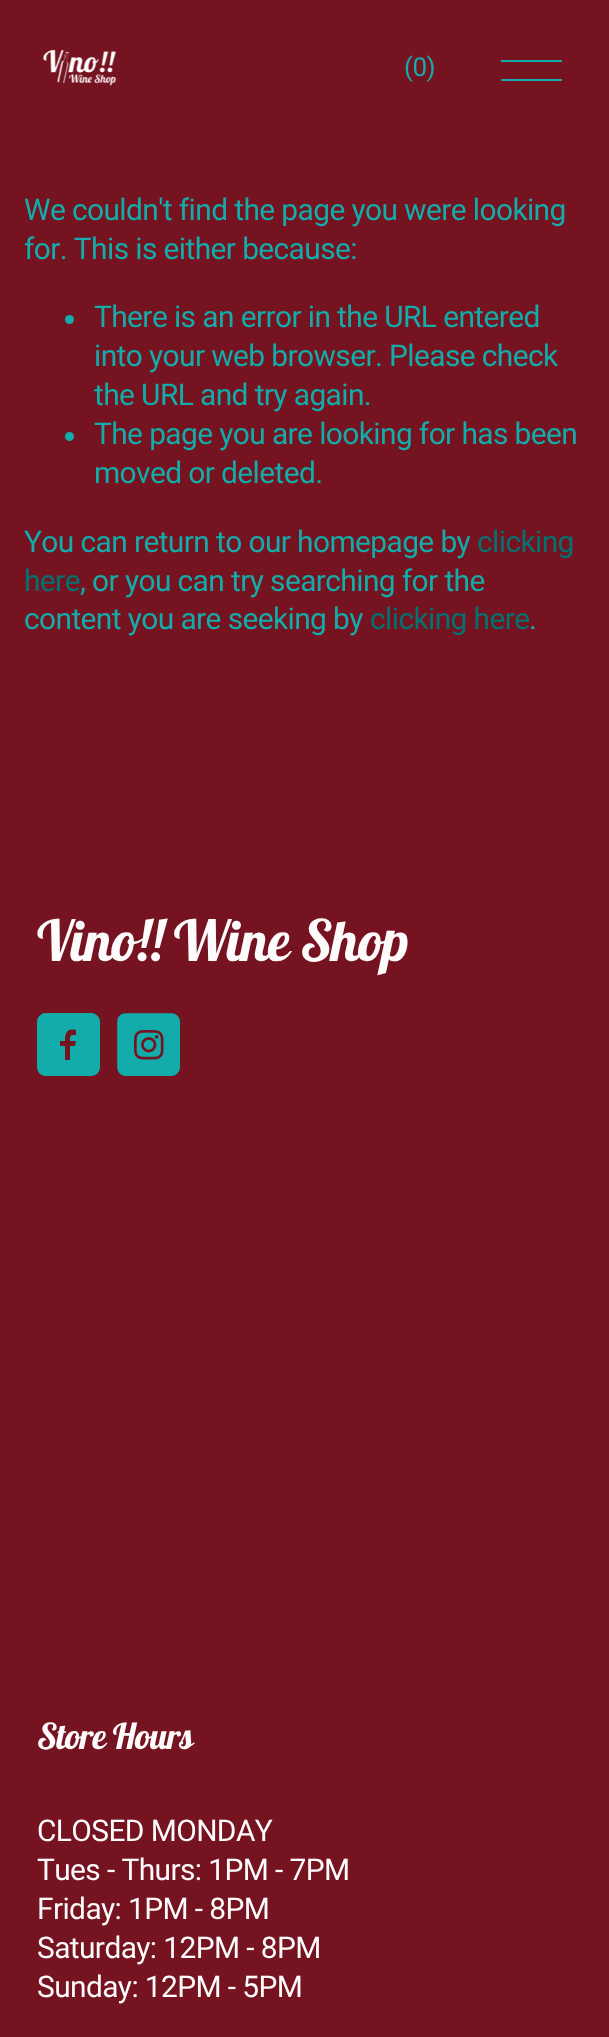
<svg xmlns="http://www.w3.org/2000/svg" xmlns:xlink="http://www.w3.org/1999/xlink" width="609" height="2037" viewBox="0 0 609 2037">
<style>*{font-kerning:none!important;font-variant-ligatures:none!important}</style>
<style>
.cls-1{font:26px Roboto;letter-spacing:-0.5px;fill:#12adaa}
.cls-2{font:29.9px Roboto;letter-spacing:-0.6px;fill:#12adaa}
.cls-3{font:29.9px Roboto;letter-spacing:-0.6px;fill:#017371}
.cls-4{font:56.5px Lobster;letter-spacing:-1.1px;fill:#fdfbfb}
.cls-5{font:35.5px Lobster;letter-spacing:-0.75px;fill:#fdfbfb}
.cls-6{font:29.9px Roboto;letter-spacing:-0.6px;fill:#fdfbfb}
</style>
<rect width="100%" height="100%" fill="#751321"/>
<image xlink:href="image0.png" x="42" y="49" width="75" height="37"/>
<rect fill="#12adaa" x="501" y="60" width="61" height="2"/>
<rect fill="#12adaa" x="501" y="79" width="61" height="2"/>
<circle fill="#12adaa" cx="69.5" cy="319.5" r="4.5"/>
<circle fill="#12adaa" cx="69.5" cy="436.5" r="4.5"/>
<path fill="#12adaa" fill-rule="evenodd" d="M46 1013C41 1013 37 1017 37 1022V1067C37 1072 41 1076 46 1076H91C96 1076 100 1072 100 1067V1022C100 1017 96 1013 91 1013ZM76 1035V1030C67 1028 65 1033 65 1041H60V1046H65V1060H70V1046H75L76 1041H70C70 1035 70 1035 76 1035Z"/>
<image xlink:href="image1.png" x="117" y="1013" width="63" height="63"/>
<text class="cls-1" x="404" y="76">(0)</text>
<text class="cls-2"><tspan x="24" y="220">We couldn't find the page you were looking</tspan><tspan x="24" y="259">for. This is either because:</tspan></text>
<text class="cls-2"><tspan x="94" y="327">There is an error in the URL entered</tspan><tspan x="94" y="366">into your web browser. Please check</tspan><tspan x="94" y="405">the URL and try again.</tspan><tspan x="94" y="444">The page you are looking for has been</tspan><tspan x="94" y="483">moved or deleted.</tspan></text>
<text class="cls-2" x="24" y="552">You can return to our homepage by</text>
<text class="cls-3" x="477" y="552">clicking</text>
<text class="cls-3" x="24" y="591">here</text>
<text class="cls-2" x="80" y="591">, or you can try searching for the</text>
<text class="cls-2" x="24" y="629">content you are seeking by</text>
<text class="cls-3" x="370" y="629">clicking here</text>
<text class="cls-2" x="529" y="629">.</text>
<text class="cls-4" x="37" y="961">Vino!! Wine Shop</text>
<text class="cls-5" x="37" y="1749">Store Hours</text>
<text class="cls-6"><tspan x="37" y="1841">CLOSED MONDAY</tspan><tspan x="37" y="1880">Tues - Thurs: 1PM - 7PM</tspan><tspan x="37" y="1919">Friday: 1PM - 8PM</tspan><tspan x="37" y="1958">Saturday: 12PM - 8PM</tspan><tspan x="37" y="1997">Sunday: 12PM - 5PM</tspan></text>
</svg>
